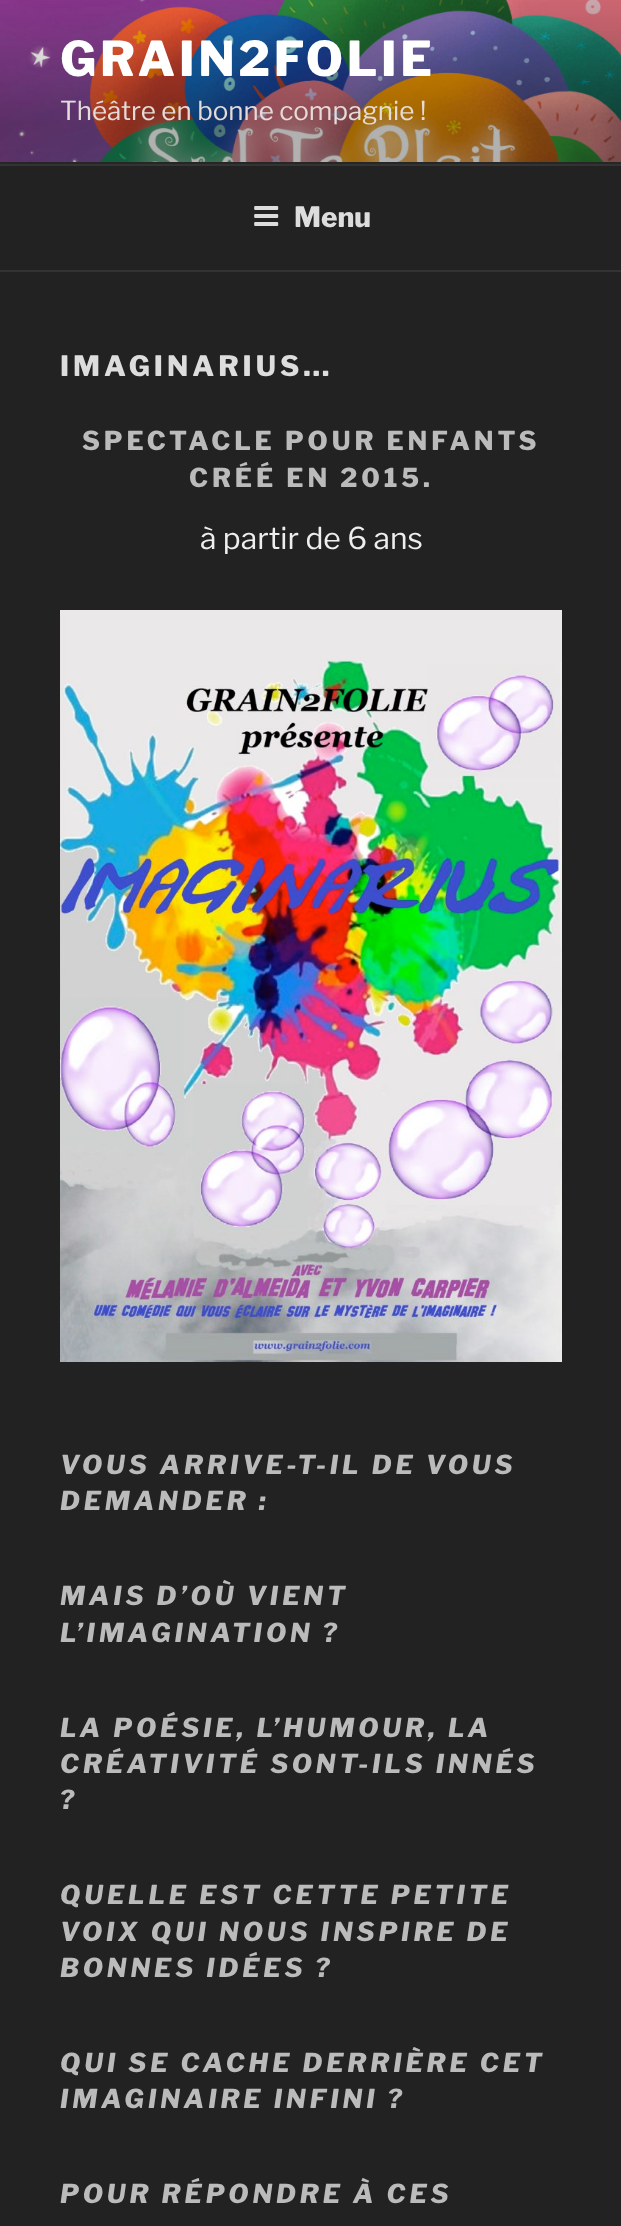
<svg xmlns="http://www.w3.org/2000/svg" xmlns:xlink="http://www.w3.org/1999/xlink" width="621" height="2226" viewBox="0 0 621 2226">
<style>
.cls-1{font:100 48px Libre Franklin;letter-spacing:3.75px;fill:#ffffff}
.cls-2{font:100 26px 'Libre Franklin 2';fill:#e5dbd8}
.cls-3{font:100 28px Libre Franklin;fill:#dddddd}
.cls-4{font:100 28px Libre Franklin;letter-spacing:4px;fill:#dddddd}
.cls-5{font:100 26px Libre Franklin;letter-spacing:3.9px;fill:#bbbbbb}
.cls-6{font:100 30px 'Libre Franklin 2';fill:#eeeeee}
.cls-7{font:italic 100 26px Libre Franklin;letter-spacing:3.9px;fill:#bbbbbb}
</style>
<rect width="100%" height="100%" fill="#222222"/>
<rect fill="#262626" x="0" y="162" width="621" height="2"/>
<image xlink:href="image0.png" x="0" y="0" width="621" height="162"/>
<rect fill="#333333" x="0" y="164" width="621" height="2"/>
<rect fill="#333333" x="0" y="270" width="621" height="2"/>
<image xlink:href="image1.png" x="254" y="206" width="25" height="20"/>
<image xlink:href="image2.png" x="60" y="610" width="502" height="752"/>
<text class="cls-1" x="60" y="76">GRAIN2FOLIE</text>
<text class="cls-2" x="60" y="120">Théâtre en bonne compagnie !</text>
<text class="cls-3" x="294" y="227">Menu</text>
<text class="cls-4" x="60" y="376">IMAGINARIUS…</text>
<text class="cls-5" x="82" y="450">SPECTACLE POUR ENFANTS</text>
<text class="cls-5" x="189" y="487">CRÉÉ EN 2015.</text>
<text class="cls-6" x="200" y="549">à partir de 6 ans</text>
<text class="cls-7"><tspan x="60" y="1474">VOUS ARRIVE-T-IL DE VOUS</tspan><tspan x="60" y="1510">DEMANDER :</tspan></text>
<text class="cls-7"><tspan x="60" y="1605">MAIS D’OÙ VIENT</tspan><tspan x="60" y="1642">L’IMAGINATION ?</tspan></text>
<text class="cls-7"><tspan x="60" y="1737">LA POÉSIE, L’HUMOUR, LA</tspan><tspan x="60" y="1773">CRÉATIVITÉ SONT-ILS INNÉS</tspan><tspan x="60" y="1809">?</tspan></text>
<text class="cls-7"><tspan x="60" y="1904">QUELLE EST CETTE PETITE</tspan><tspan x="60" y="1941">VOIX QUI NOUS INSPIRE DE</tspan><tspan x="60" y="1977">BONNES IDÉES ?</tspan></text>
<text class="cls-7"><tspan x="60" y="2072">QUI SE CACHE DERRIÈRE CET</tspan><tspan x="60" y="2108">IMAGINAIRE INFINI ?</tspan></text>
<text class="cls-7" x="60" y="2203">POUR RÉPONDRE À CES</text>
</svg>
